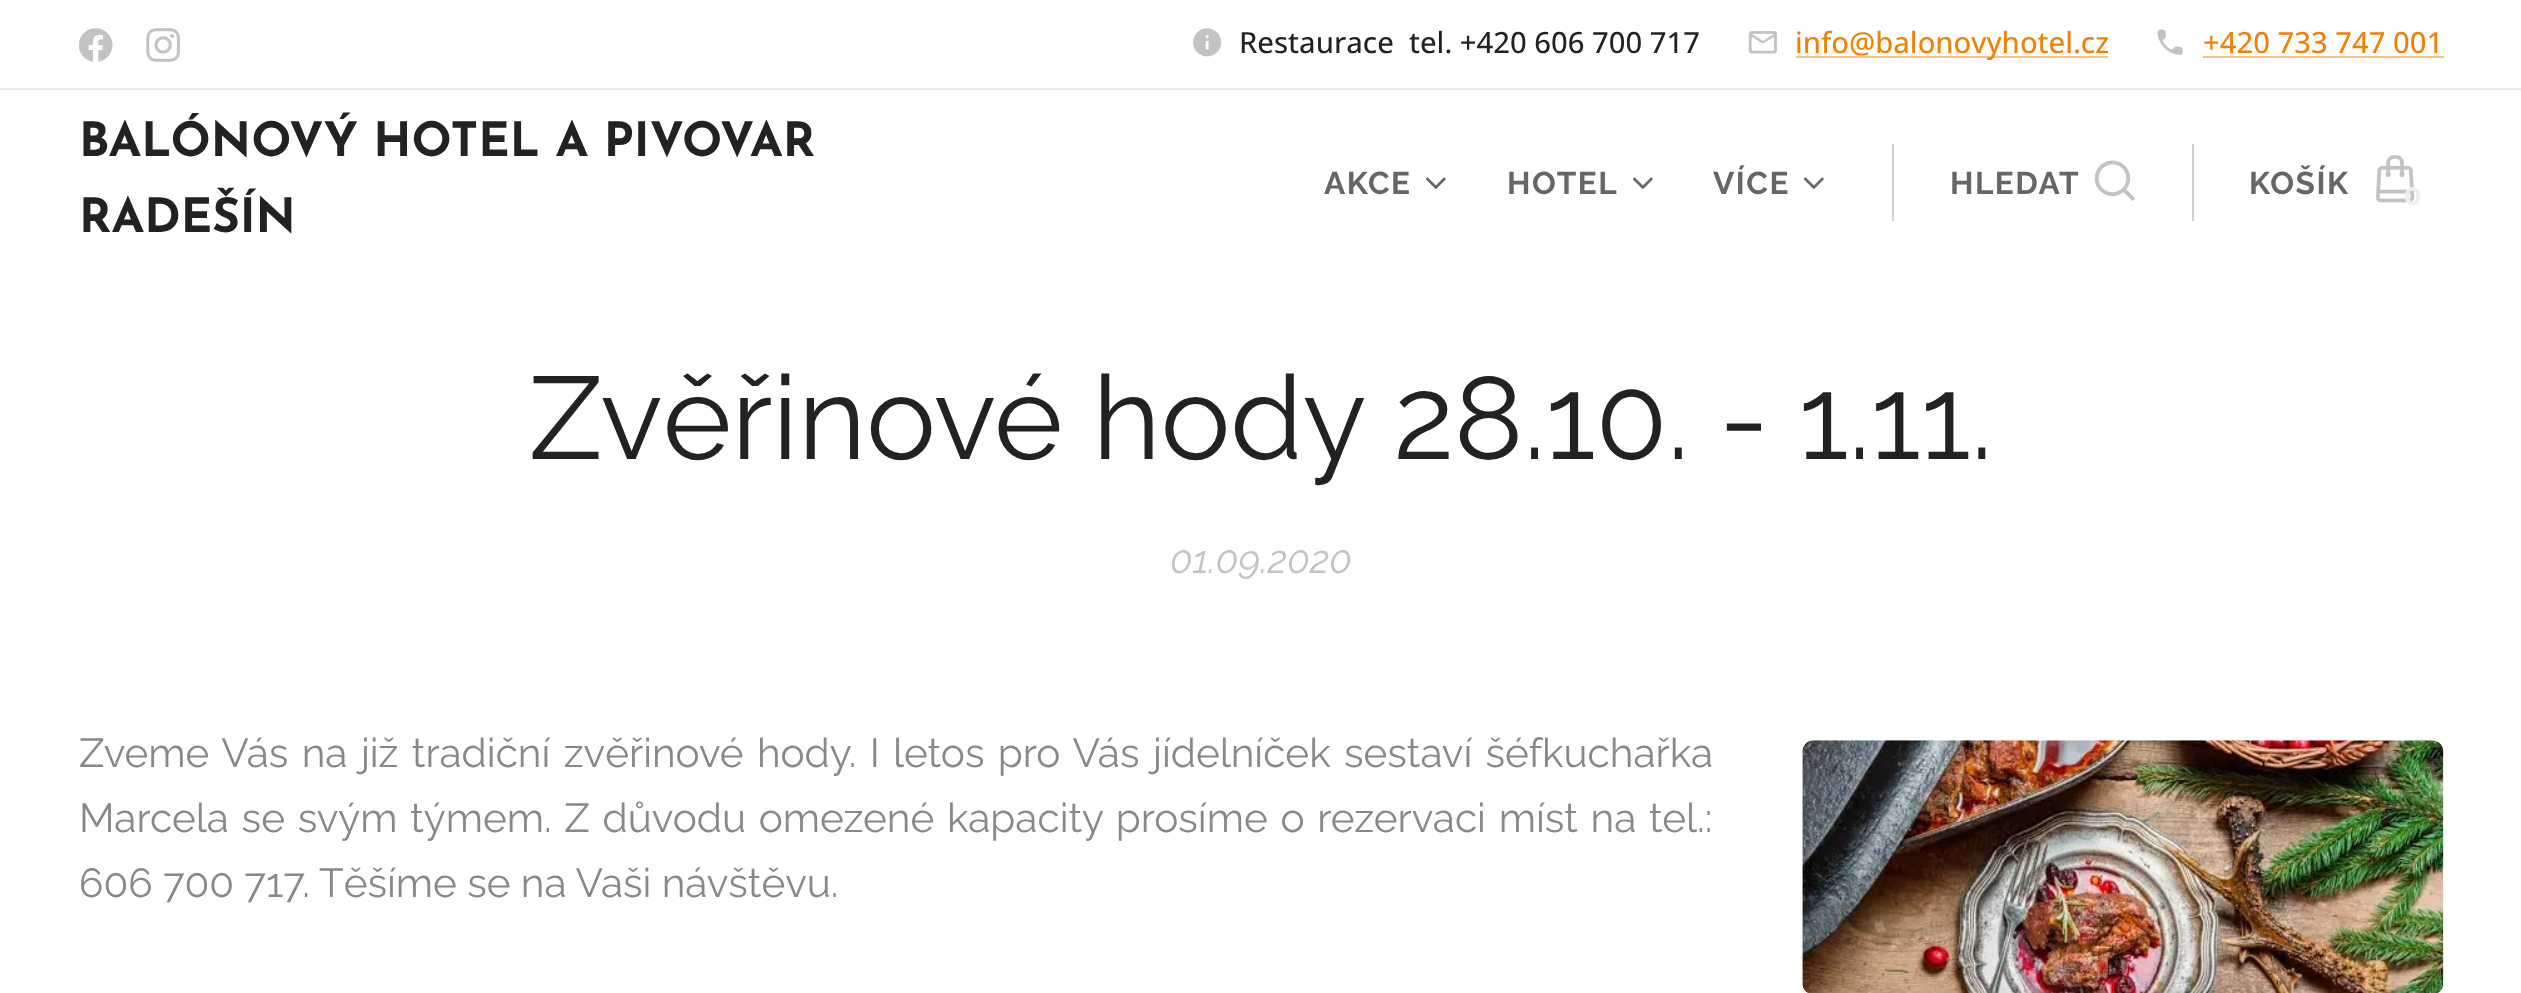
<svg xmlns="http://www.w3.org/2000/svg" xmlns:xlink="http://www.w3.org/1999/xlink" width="2521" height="993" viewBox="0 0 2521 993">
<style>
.cls-1{font:500 29.25px Open Sans;fill:#222222}
.cls-2{font:500 29.25px Open Sans;fill:#f08105}
.cls-3{font:bold 47.25px Josefin Sans;fill:#222222}
.cls-4{font:bold 31.5px Raleway;letter-spacing:1.5px;fill:#666666}
.cls-5{font:bold 25px Montserrat;fill:#eeeeee}
.cls-6{font:117px Raleway;fill:#222222}
.cls-7{font:italic 38.5px Raleway;fill:#c3c3c3}
.cls-8{font:40.5px Raleway;fill:#888888}
</style>
<rect width="100%" height="100%" fill="#ffffff"/>
<image xlink:href="image0.png" x="79" y="28" width="34" height="34"/>
<image xlink:href="image1.png" x="146" y="28" width="34" height="34"/>
<image xlink:href="image2.png" x="1193" y="28" width="29" height="29"/>
<image xlink:href="image3.png" x="1748" y="31" width="29" height="23"/>
<rect fill="#f8c082" x="1796" y="56" width="312" height="2"/>
<image xlink:href="image4.png" x="2157" y="29" width="26" height="26"/>
<rect fill="#f8c082" x="2203" y="56" width="241" height="2"/>
<rect fill="#e8e8e8" x="0" y="88" width="2521" height="2"/>
<image xlink:href="image5.png" x="1425" y="177" width="21" height="12"/>
<image xlink:href="image5.png" x="1632" y="177" width="21" height="12"/>
<image xlink:href="image5.png" x="1803" y="177" width="21" height="12"/>
<rect fill="#d1d1d1" x="1892" y="144" width="2" height="77"/>
<image xlink:href="image6.png" x="2094" y="160" width="41" height="41"/>
<rect fill="#d1d1d1" x="2192" y="144" width="2" height="77"/>
<image xlink:href="image7.png" x="2376" y="155" width="39" height="48"/>
<image xlink:href="image8.png" x="1802" y="740" width="642" height="253"/>
<text class="cls-1" xml:space="preserve" x="1239" y="53">Restaurace  tel. +420 606 700 717</text>
<text class="cls-2" x="1795" y="53">info@balonovyhotel.cz</text>
<text class="cls-2" x="2203" y="53">+420 733 747 001</text>
<text class="cls-3"><tspan x="79" y="156">BALÓNOVÝ HOTEL A PIVOVAR</tspan><tspan x="79" y="232">RADEŠÍN</tspan></text>
<text class="cls-4" x="1324" y="194">AKCE</text>
<text class="cls-4" x="1507" y="194">HOTEL</text>
<text class="cls-4" x="1713" y="194">VÍCE</text>
<text class="cls-4" x="1950" y="194">HLEDAT</text>
<text class="cls-4" x="2249" y="194">KOŠÍK</text>
<text class="cls-5" x="2404" y="205">0</text>
<text class="cls-6" x="529" y="459">Zvěřinové hody 28.10. - 1.11.</text>
<text class="cls-7" x="1170" y="573">01.09.2020</text>
<text class="cls-8"><tspan x="79" y="767" word-spacing="3">Zveme Vás na již tradiční zvěřinové hody. I letos pro Vás jídelníček sestaví šéfkuchařka</tspan><tspan x="79" y="832" word-spacing="2.4">Marcela se svým týmem. Z důvodu omezené kapacity prosíme o rezervaci míst na tel.:</tspan><tspan x="79" y="897">606 700 717. Těšíme se na Vaši návštěvu.</tspan></text>
</svg>
